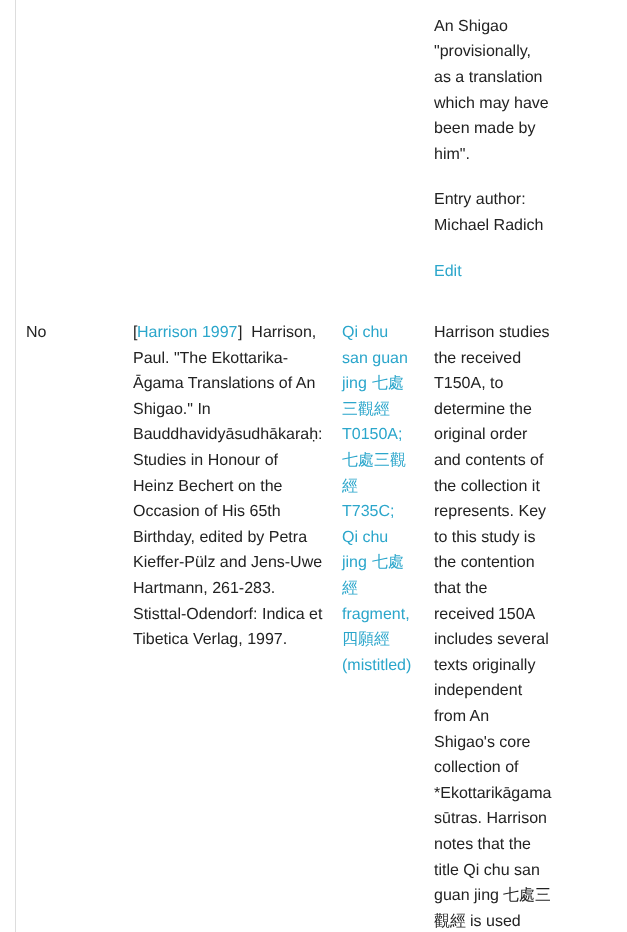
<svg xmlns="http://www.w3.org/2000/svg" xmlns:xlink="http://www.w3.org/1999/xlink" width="627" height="932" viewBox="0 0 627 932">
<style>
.cls-1{font:16px Liberation Sans;fill:#222222}
.cls-2{font:16px Liberation Sans;fill:#2ba6cb}
.cls-3{font:500 16px WenQuanYi Zen Hei;fill:#2ba6cb}
.cls-4{font:500 16px WenQuanYi Zen Hei;fill:#222222}
</style>
<rect width="100%" height="100%" fill="#ffffff"/>
<rect fill="#dddddd" x="15" y="0" width="1" height="932"/>
<text class="cls-1"><tspan x="434" y="31">An Shigao</tspan><tspan x="434" y="56">"provisionally,</tspan><tspan x="434" y="82">as a translation</tspan><tspan x="434" y="108">which may have</tspan><tspan x="434" y="133">been made by</tspan><tspan x="434" y="159">him".</tspan></text>
<text class="cls-1"><tspan x="434" y="204">Entry author:</tspan><tspan x="434" y="230">Michael Radich</tspan></text>
<text class="cls-2" x="434" y="276">Edit</text>
<text class="cls-1" x="26" y="337">No</text>
<text class="cls-1" x="133" y="337">[</text>
<text class="cls-2" x="137" y="337">Harrison 1997</text>
<text class="cls-1" xml:space="preserve" x="238" y="337">]  Harrison,</text>
<text class="cls-1"><tspan x="133" y="363">Paul. "The Ekottarika-</tspan><tspan x="133" y="388">Āgama Translations of An</tspan><tspan x="133" y="414">Shigao." In</tspan><tspan x="133" y="439">Bauddhavidyāsudhākaraḥ:</tspan><tspan x="133" y="465">Studies in Honour of</tspan><tspan x="133" y="491">Heinz Bechert on the</tspan><tspan x="133" y="516">Occasion of His 65th</tspan><tspan x="133" y="542">Birthday, edited by Petra</tspan><tspan x="133" y="567">Kieffer-Pülz and Jens-Uwe</tspan><tspan x="133" y="593">Hartmann, 261-283.</tspan><tspan x="133" y="619">Stisttal-Odendorf: Indica et</tspan><tspan x="133" y="644">Tibetica Verlag, 1997.</tspan></text>
<text class="cls-2"><tspan x="342" y="337">Qi chu</tspan><tspan x="342" y="363">san guan</tspan><tspan x="342" y="388">jing</tspan></text>
<text class="cls-3" x="372" y="388">七處</text>
<text class="cls-3" x="342" y="414">三觀經</text>
<text class="cls-2" x="342" y="439">T0150A;</text>
<text class="cls-3"><tspan x="342" y="465">七處三觀</tspan><tspan x="342" y="491">經</tspan></text>
<text class="cls-2"><tspan x="342" y="516">T735C;</tspan><tspan x="342" y="542">Qi chu</tspan><tspan x="342" y="567">jing</tspan></text>
<text class="cls-3" x="372" y="567">七處</text>
<text class="cls-3" x="342" y="593">經</text>
<text class="cls-2" x="342" y="619">fragment,</text>
<text class="cls-3" x="342" y="644">四願經</text>
<text class="cls-2" x="342" y="670">(mistitled)</text>
<text class="cls-1"><tspan x="434" y="337">Harrison studies</tspan><tspan x="434" y="363">the received</tspan><tspan x="434" y="388">T150A, to</tspan><tspan x="434" y="414">determine the</tspan><tspan x="434" y="439">original order</tspan><tspan x="434" y="465">and contents of</tspan><tspan x="434" y="491">the collection it</tspan><tspan x="434" y="516">represents. Key</tspan><tspan x="434" y="542">to this study is</tspan><tspan x="434" y="567">the contention</tspan><tspan x="434" y="593">that the</tspan><tspan x="434" y="619" word-spacing="-1">received 150A</tspan><tspan x="434" y="644">includes several</tspan><tspan x="434" y="670">texts originally</tspan><tspan x="434" y="695">independent</tspan><tspan x="434" y="721">from An</tspan><tspan x="434" y="747">Shigao's core</tspan><tspan x="434" y="772">collection of</tspan><tspan x="434" y="798">*Ekottarikāgama</tspan><tspan x="434" y="823">sūtras. Harrison</tspan><tspan x="434" y="849">notes that the</tspan><tspan x="434" y="875">title Qi chu san</tspan><tspan x="434" y="900">guan jing</tspan></text>
<text class="cls-4" x="503" y="900">七處三</text>
<text class="cls-4" x="434" y="926">觀經</text>
<text class="cls-1" x="470" y="926">is used</text>
</svg>
